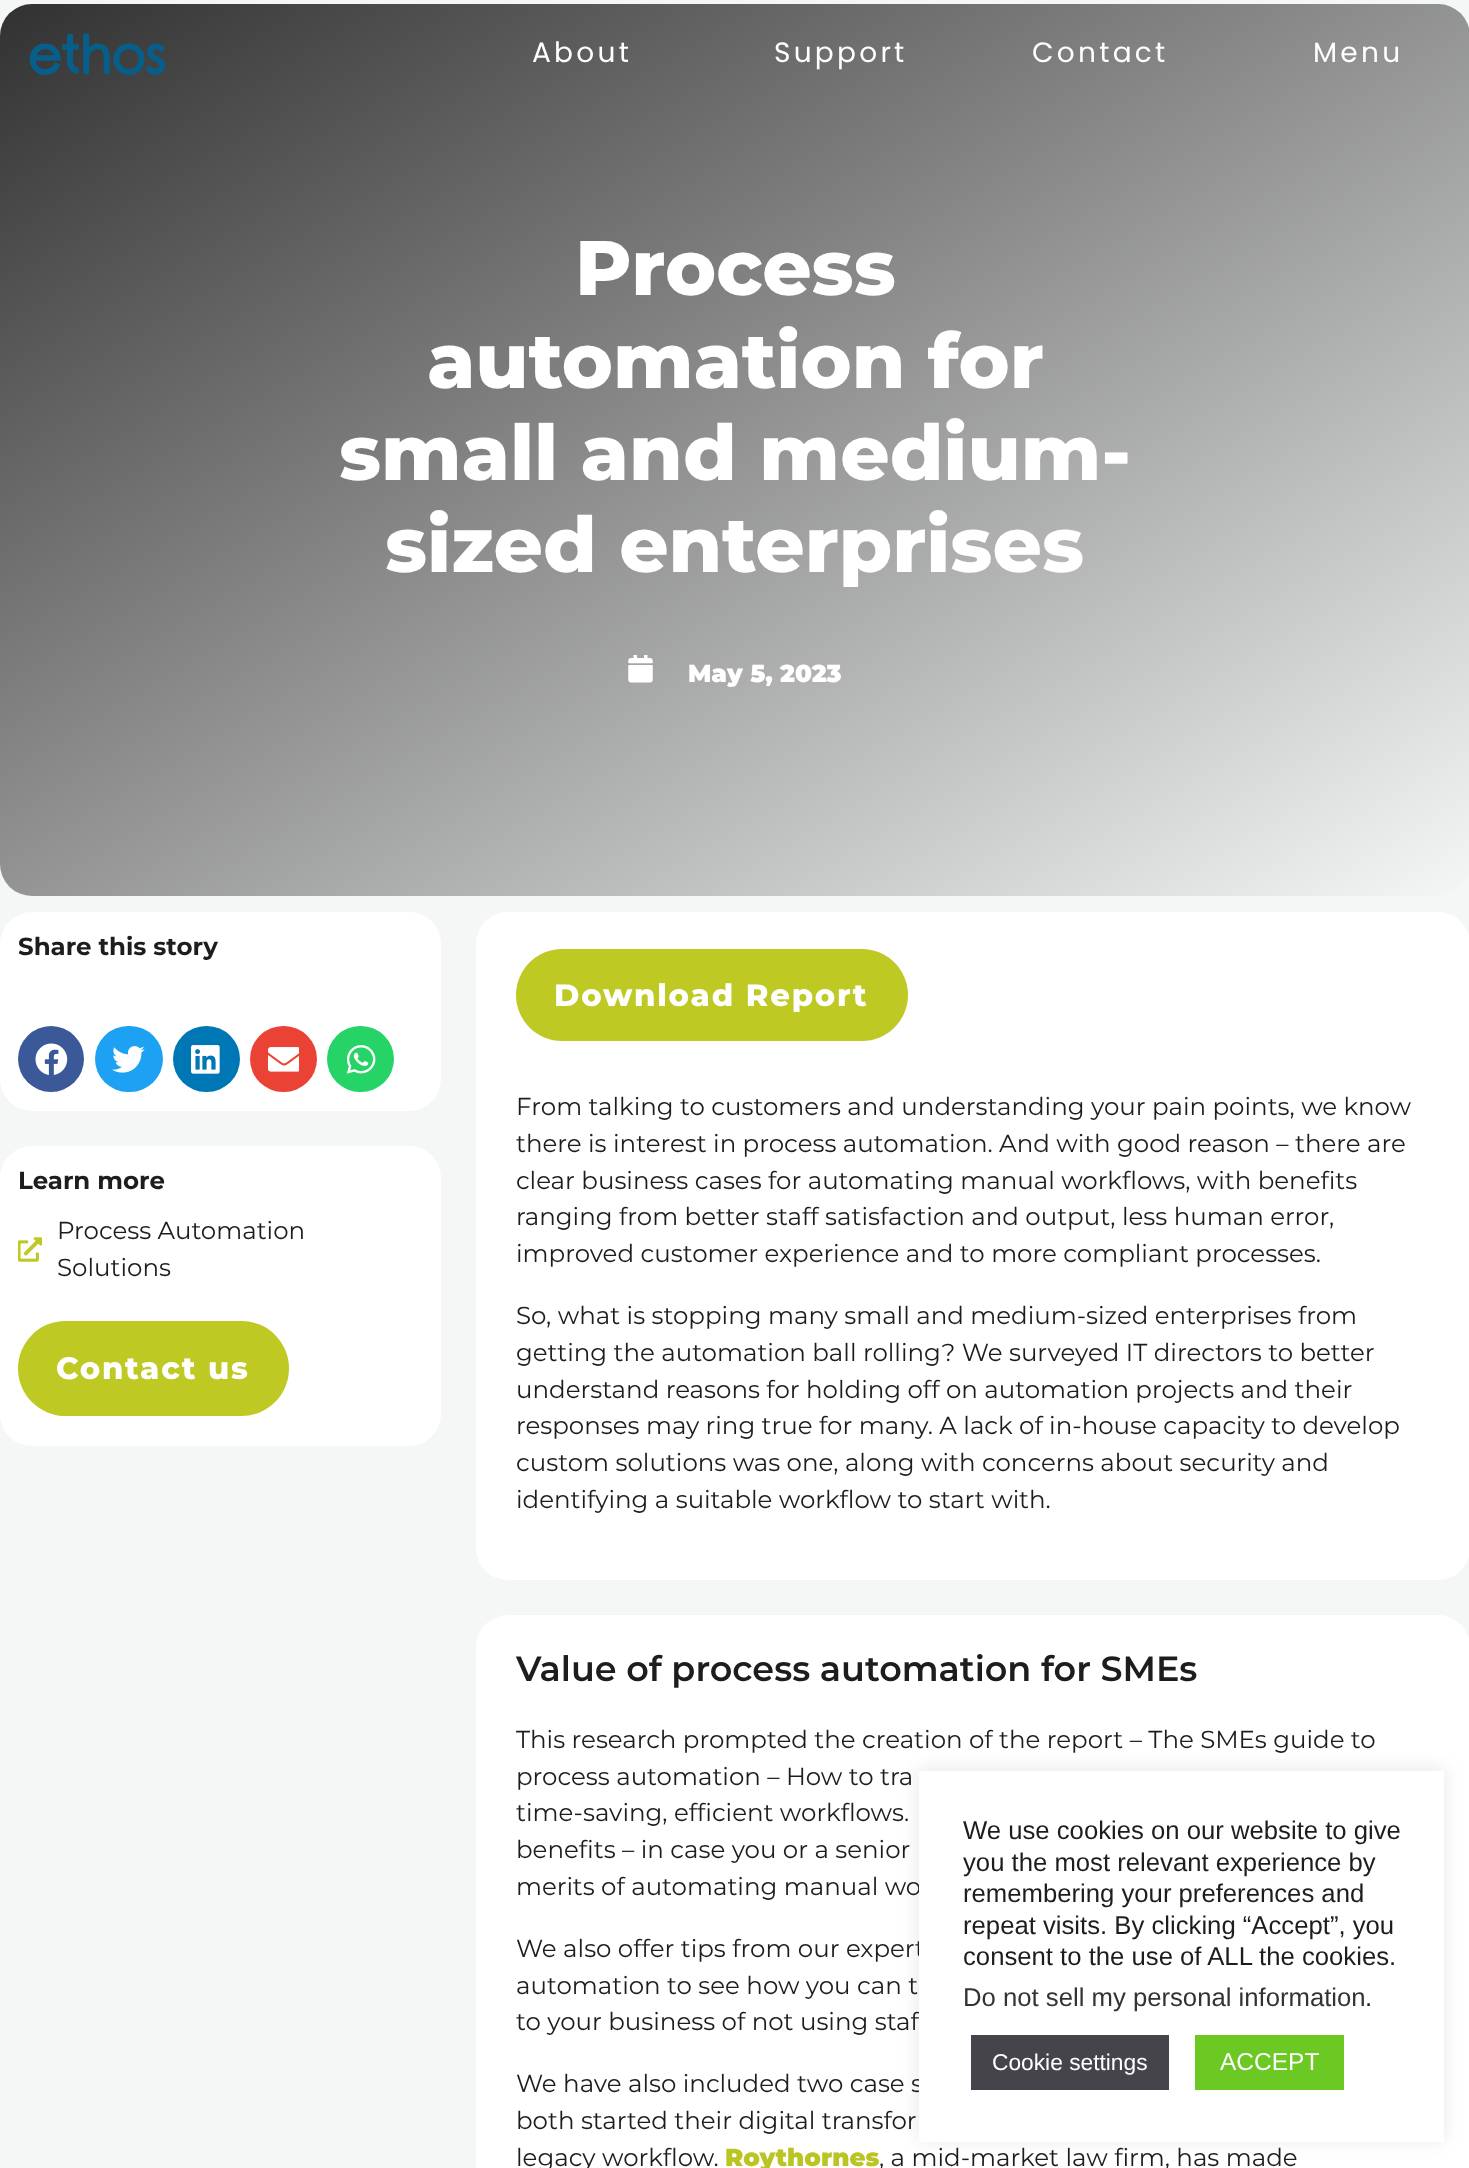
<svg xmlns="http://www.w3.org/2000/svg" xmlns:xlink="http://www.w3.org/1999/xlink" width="1469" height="2168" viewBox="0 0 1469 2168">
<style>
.cls-1{font:28px Poppins;letter-spacing:3.25px;fill:#ffffff}
.cls-2{font:800 77px Montserrat;fill:#ffffff}
.cls-3{font:900 24.5px Montserrat;fill:#ffffff}
.cls-4{font:bold 24.5px Montserrat;fill:#1d1d1f}
.cls-5{font:24.5px Montserrat;fill:#1d1d1f}
.cls-6{font:800 30.75px Montserrat;letter-spacing:1.75px;fill:#ffffff}
.cls-7{font:600 35px Montserrat;fill:#1d1d1f}
.cls-8{font:900 24.5px Montserrat;fill:#bac523}
.cls-9{font:25.7px Liberation Sans;fill:#1d1d1f}
.cls-10{font:25.7px Liberation Sans;fill:#333333}
.cls-11{font:22.75px Liberation Sans;fill:#ffffff}
.cls-12{font:24.5px Liberation Sans;fill:#ffffff}
</style>
<defs>
<linearGradient id="g1" gradientUnits="userSpaceOnUse" x1="343" y1="-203" x2="1127" y2="1102"><stop offset="0" stop-color="#313131"/><stop offset="1" stop-color="#f5f6f6"/></linearGradient>
</defs>
<rect width="100%" height="100%" fill="#f5f6f6"/>
<rect fill="url(#g1)" x="0" y="4" width="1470" height="892" rx="32"/>
<image xlink:href="image0.png" x="29" y="33" width="137" height="42"/>
<image xlink:href="image1.png" x="628" y="655" width="25" height="28"/>
<rect fill="#ffffff" x="0" y="912" width="441" height="199" rx="32"/>
<circle fill="#3b5998" cx="51" cy="1059" r="33"/>
<image xlink:href="image2.png" x="35" y="1043" width="33" height="32"/>
<rect fill="#1da1f2" x="95" y="1026" width="68" height="66" rx="33"/>
<image xlink:href="image3.png" x="112" y="1046" width="33" height="27"/>
<rect fill="#0077b5" x="173" y="1026" width="67" height="66" rx="33"/>
<image xlink:href="image4.png" x="191" y="1045" width="29" height="29"/>
<rect fill="#ea4335" x="250" y="1026" width="67" height="66" rx="33"/>
<image xlink:href="image5.png" x="268" y="1047" width="31" height="25"/>
<rect fill="#25d366" x="327" y="1026" width="67" height="66" rx="33"/>
<image xlink:href="image6.png" x="346" y="1045" width="30" height="29"/>
<rect fill="#ffffff" x="0" y="1146" width="441" height="300" rx="32"/>
<image xlink:href="image7.png" x="18" y="1237" width="24" height="25"/>
<rect fill="#bec923" x="18" y="1321" width="271" height="95" rx="47.5"/>
<rect fill="#ffffff" x="476" y="912" width="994" height="668" rx="32"/>
<rect fill="#bec923" x="516" y="949" width="392" height="92" rx="46"/>
<rect fill="#ffffff" x="476" y="1615" width="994" height="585" rx="32"/>
<rect fill="#acabab" fill-opacity="0.3" filter="blur(9px)" x="919" y="1769" width="525" height="371"/>
<text class="cls-1" x="532" y="62">About</text>
<text class="cls-1" x="774" y="62">Support</text>
<text class="cls-1" x="1032" y="62">Contact</text>
<text class="cls-1" x="1313" y="62">Menu</text>
<text class="cls-2" x="575" y="295">Process</text>
<text class="cls-2" x="427" y="388">automation for</text>
<text class="cls-2" x="339" y="480">small and medium-</text>
<text class="cls-2" x="385" y="572">sized enterprises</text>
<text class="cls-3" x="688" y="682">May 5, 2023</text>
<text class="cls-4" x="18" y="955">Share this story</text>
<text class="cls-4" x="18" y="1189">Learn more</text>
<text class="cls-5"><tspan x="57" y="1239">Process Automation</tspan><tspan x="57" y="1276">Solutions</tspan></text>
<text class="cls-6" x="56" y="1379">Contact us</text>
<text class="cls-6" x="554" y="1006">Download Report</text>
<text class="cls-5"><tspan x="516" y="1115">From talking to customers and understanding your pain points, we know</tspan><tspan x="516" y="1152">there is interest in process automation. And with good reason – there are</tspan><tspan x="516" y="1189">clear business cases for automating manual workflows, with benefits</tspan><tspan x="516" y="1225">ranging from better staff satisfaction and output, less human error,</tspan><tspan x="516" y="1262">improved customer experience and to more compliant processes.</tspan></text>
<text class="cls-5"><tspan x="516" y="1324">So, what is stopping many small and medium-sized enterprises from</tspan><tspan x="516" y="1361">getting the automation ball rolling? We surveyed IT directors to better</tspan><tspan x="516" y="1398">understand reasons for holding off on automation projects and their</tspan><tspan x="516" y="1434">responses may ring true for many. A lack of in-house capacity to develop</tspan><tspan x="516" y="1471">custom solutions was one, along with concerns about security and</tspan><tspan x="516" y="1508">identifying a suitable workflow to start with.</tspan></text>
<text class="cls-7" x="516" y="1681">Value of process automation for SMEs</text>
<text class="cls-5"><tspan x="516" y="1748">This research prompted the creation of the report – The SMEs guide to</tspan><tspan x="516" y="1785">process automation – How to tra</tspan><tspan x="516" y="1821">time-saving, efficient workflows.</tspan><tspan x="516" y="1858">benefits – in case you or a senior</tspan><tspan x="516" y="1895">merits of automating manual wo</tspan></text>
<text class="cls-5"><tspan x="516" y="1957">We also offer tips from our expert</tspan><tspan x="516" y="1994">automation to see how you can t</tspan><tspan x="516" y="2030">to your business of not using staf</tspan></text>
<text class="cls-5"><tspan x="516" y="2092">We have also included two case s</tspan><tspan x="516" y="2129">both started their digital transfor</tspan><tspan x="516" y="2166">legacy workflow.</tspan></text>
<text class="cls-8" x="725" y="2166">Roythornes</text>
<text class="cls-5" x="879" y="2166">, a mid-market law firm, has made</text>
<rect fill="#ffffff" x="919" y="1771" width="525" height="371"/>
<text class="cls-9"><tspan x="963" y="1839">We use cookies on our website to give</tspan><tspan x="963" y="1871">you the most relevant experience by</tspan><tspan x="963" y="1902">remembering your preferences and</tspan><tspan x="963" y="1934">repeat visits. By clicking “Accept”, you</tspan><tspan x="963" y="1965">consent to the use of ALL the cookies.</tspan></text>
<text class="cls-10" x="963" y="2006">Do not sell my personal information</text>
<text class="cls-9" x="1365" y="2006">.</text>
<rect fill="#44444a" x="971" y="2035" width="198" height="55"/>
<text class="cls-11" x="992" y="2070">Cookie settings</text>
<rect fill="#6cc923" x="1195" y="2035" width="149" height="55"/>
<text class="cls-12" x="1220" y="2070">ACCEPT</text>
</svg>
